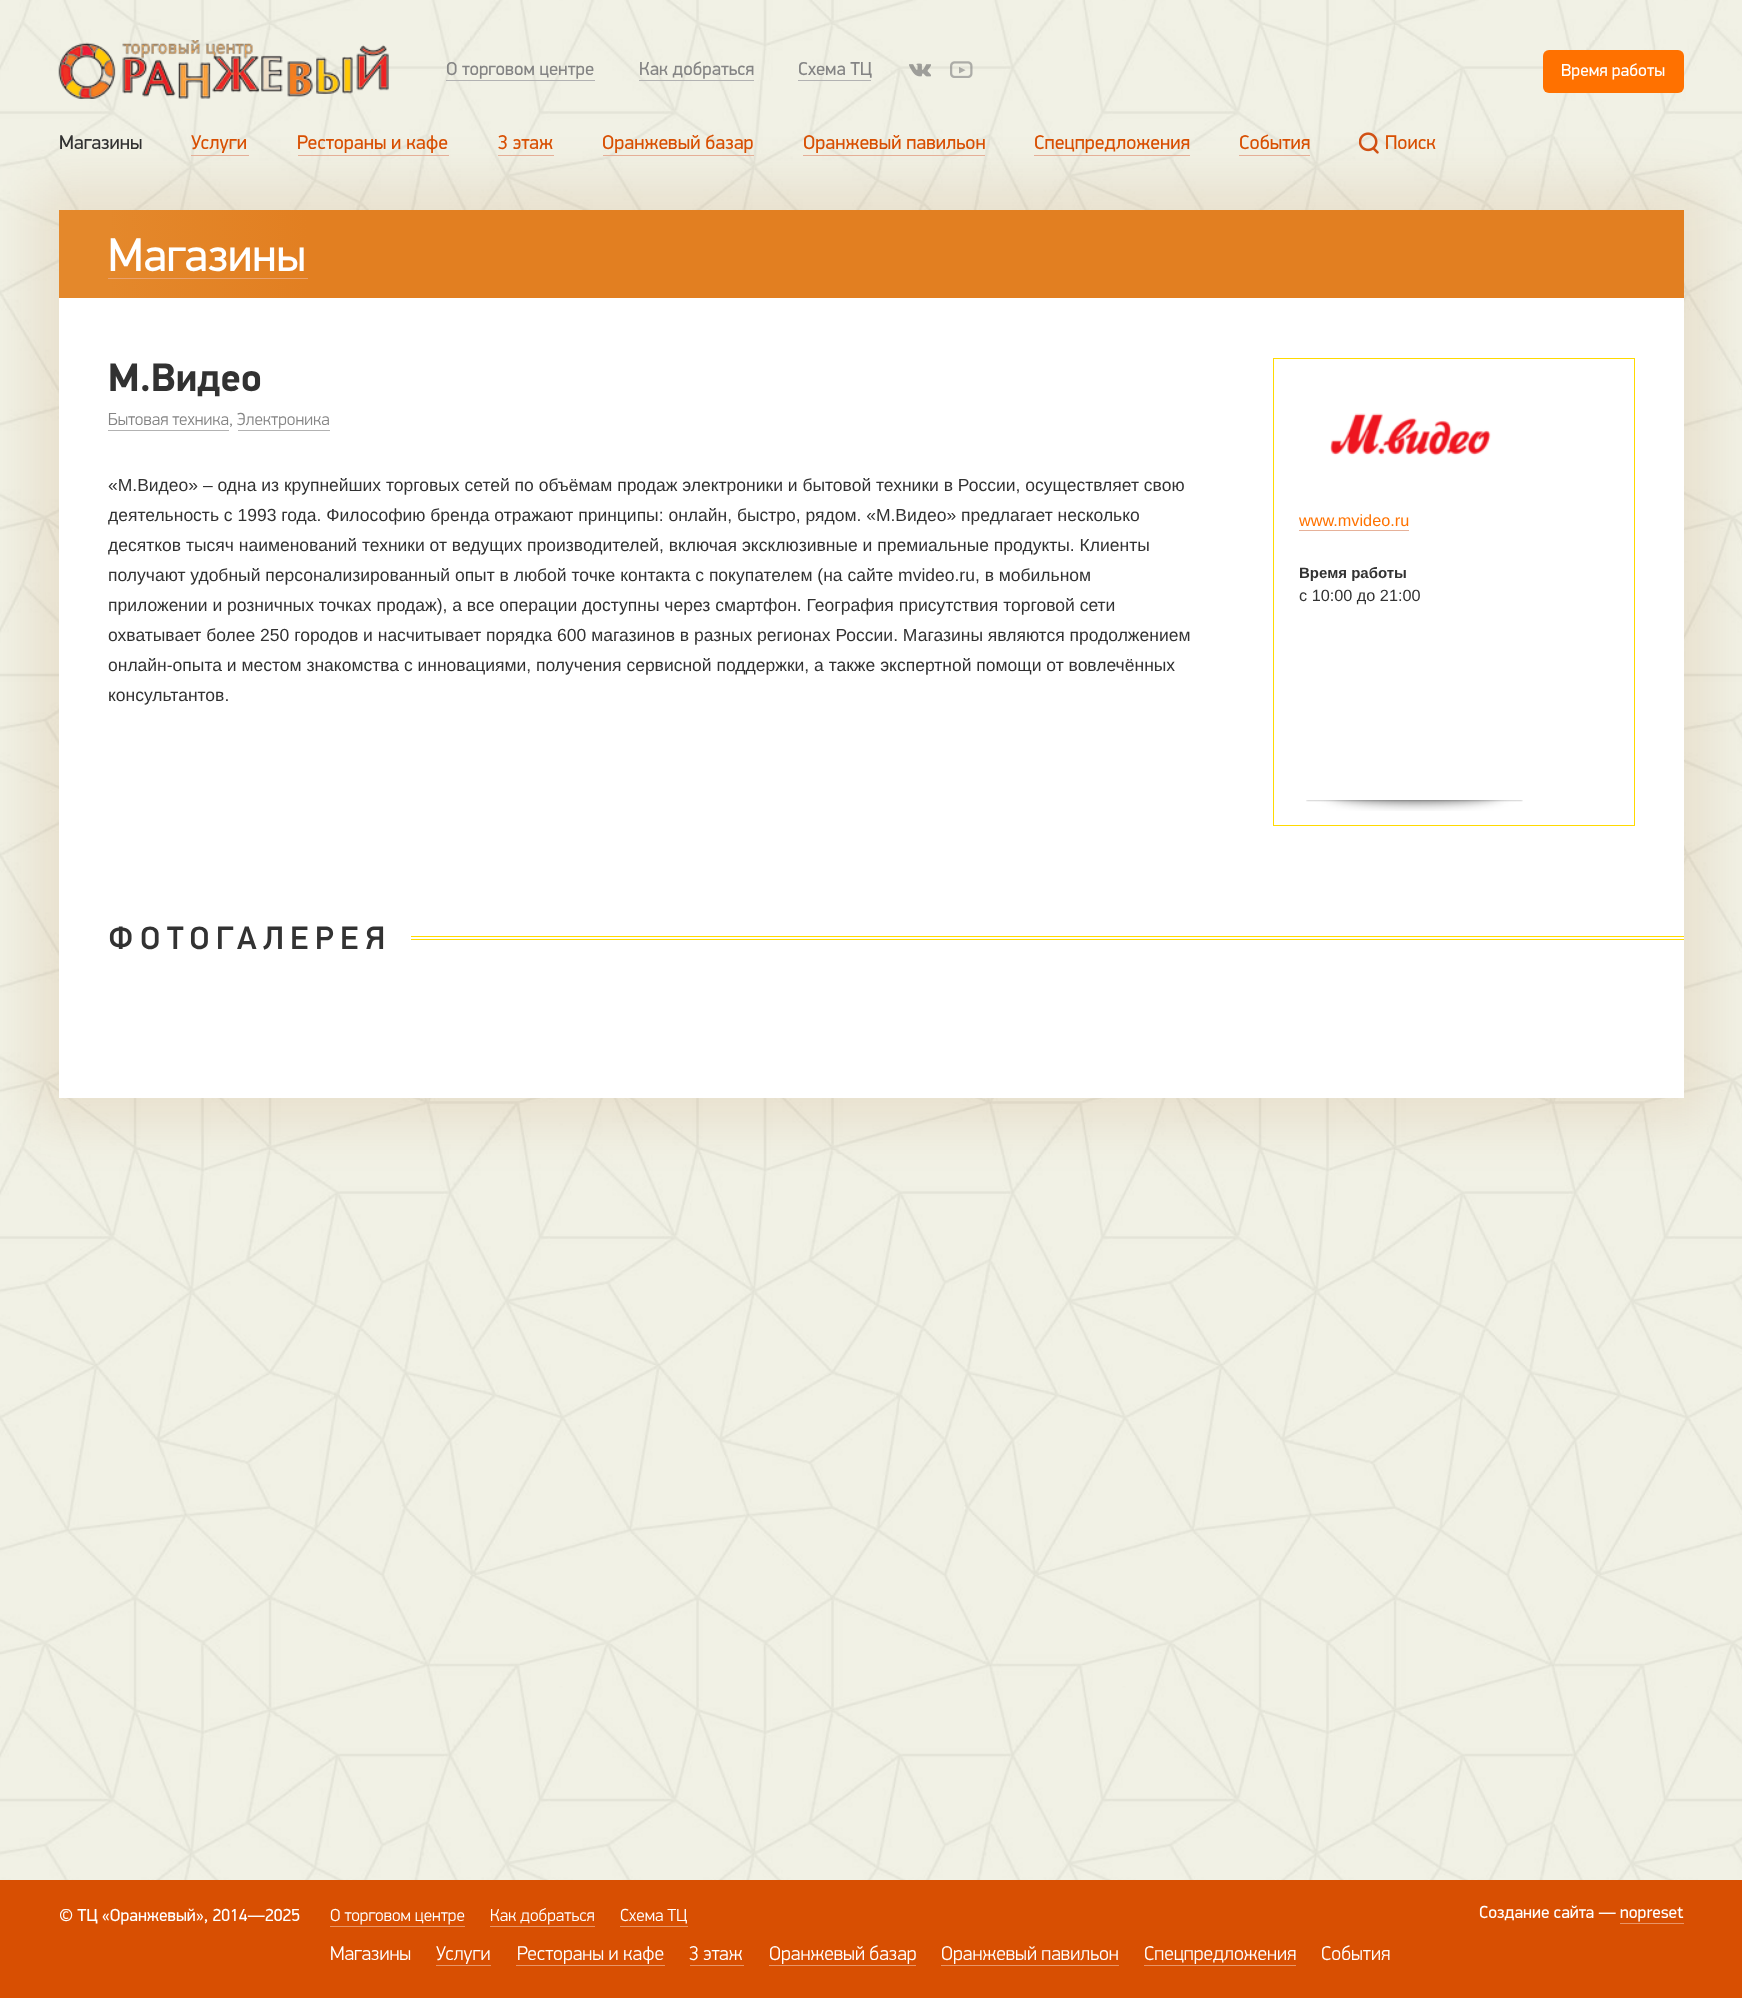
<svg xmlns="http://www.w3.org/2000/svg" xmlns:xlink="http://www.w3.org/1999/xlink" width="1742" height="1998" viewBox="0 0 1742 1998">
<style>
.cls-1{font:18.75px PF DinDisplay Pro;fill:#848484}
.cls-2{font:17.5px PF DinDisplay Pro;fill:#ffffff}
.cls-3{font:20px PF DinDisplay Pro;fill:#323232}
.cls-4{font:20px PF DinDisplay Pro;fill:#d84f02}
.cls-5{font:47.5px PF DinDisplay Pro;fill:#ffffff}
.cls-6{font:bold 40px PF DinDisplay Pro;fill:#323232}
.cls-7{font:300 17.5px PF DinDisplay Pro;fill:#848484}
.cls-8{font:17.5px Liberation Sans;fill:#323232}
.cls-9{font:16.25px Liberation Sans;fill:#ff7200}
.cls-10{font:bold 15px Liberation Sans;fill:#323232}
.cls-11{font:16.25px Liberation Sans;fill:#323232}
.cls-12{font:500 32.5px PF DinDisplay Pro;letter-spacing:6.5px;fill:#323232}
.cls-13{font:300 17.5px PF DinDisplay Pro;fill:#ffffff}
.cls-14{font:300 20px PF DinDisplay Pro;fill:#ffffff}
</style>
<defs>
<linearGradient id="g1" gradientUnits="userSpaceOnUse" x1="59" y1="254" x2="308" y2="254"><stop offset="0" stop-color="#e4882b"/><stop offset="0.2" stop-color="#e4882b"/><stop offset="1" stop-color="#e27f21"/></linearGradient>
</defs>
<rect width="100%" height="100%" fill="#ffffff"/>
<image xlink:href="image0.png" x="0" y="0" width="1742" height="1880"/>
<image xlink:href="image1.png" x="58" y="40" width="331" height="59"/>
<rect fill="#b2b2b2" x="446" y="80" width="149" height="1"/>
<rect fill="#b2b2b2" x="639" y="80" width="115" height="1"/>
<rect fill="#b2b2b2" x="798" y="80" width="73" height="1"/>
<image xlink:href="image2.png" x="909" y="63" width="22" height="14"/>
<image xlink:href="image3.png" x="950" y="61" width="23" height="17"/>
<rect fill="#ff7100" x="1543" y="50" width="141" height="43" rx="6"/>
<rect fill="#e6b199" x="191" y="155" width="58" height="1"/>
<rect fill="#e6b199" x="298" y="155" width="151" height="1"/>
<rect fill="#e6b199" x="498" y="155" width="56" height="1"/>
<rect fill="#e6b199" x="603" y="155" width="151" height="1"/>
<rect fill="#e6b199" x="803" y="155" width="182" height="1"/>
<rect fill="#e6b199" x="1034" y="155" width="156" height="1"/>
<rect fill="#e6b199" x="1239" y="155" width="71" height="1"/>
<image xlink:href="image4.png" x="1359" y="132" width="20" height="22"/>
<rect fill="#a04e00" fill-opacity="0.1" filter="blur(25px)" x="34" y="185" width="1675" height="938"/>
<rect fill="#ffffff" x="59" y="298" width="1625" height="800"/>
<rect fill="#e27f21" x="308" y="210" width="1376" height="88"/>
<rect fill="url(#g1)" x="59" y="210" width="249" height="88"/>
<rect fill="#e9a16f" x="108" y="278" width="200" height="1"/>
<rect fill="#b2b2b2" x="108" y="430" width="121" height="1"/>
<rect fill="#b2b2b2" x="238" y="430" width="92" height="1"/>
<rect fill="none" stroke="#ffda00" x="1273.5" y="358.5" width="361" height="467"/>
<image xlink:href="image5.png" x="1330" y="413" width="161" height="43"/>
<rect fill="#e6b199" x="1299" y="530" width="110" height="1"/>
<image xlink:href="image6.png" x="1306" y="800" width="217" height="11"/>
<rect fill="#ffda00" x="411" y="936" width="1273" height="1"/>
<rect fill="#ffda00" x="411" y="939" width="1273" height="1"/>
<rect fill="#d84f02" x="0" y="1880" width="1742" height="118"/>
<rect fill="#e89567" x="330" y="1926" width="135" height="1"/>
<rect fill="#e89567" x="490" y="1926" width="105" height="1"/>
<rect fill="#e89567" x="620" y="1926" width="68" height="1"/>
<rect fill="#e89567" x="436" y="1965" width="55" height="1"/>
<rect fill="#e89567" x="516" y="1965" width="149" height="1"/>
<rect fill="#e89567" x="690" y="1965" width="54" height="1"/>
<rect fill="#e89567" x="769" y="1965" width="147" height="1"/>
<rect fill="#e89567" x="941" y="1965" width="178" height="1"/>
<rect fill="#e89567" x="1144" y="1965" width="152" height="1"/>
<rect fill="#e89567" x="1620" y="1923" width="64" height="1"/>
<text class="cls-1" x="446" y="75">О торговом центре</text>
<text class="cls-1" x="639" y="75">Как добраться</text>
<text class="cls-1" x="798" y="75">Схема ТЦ</text>
<text class="cls-2" x="1561" y="76">Время работы</text>
<text class="cls-3" x="59" y="149">Магазины</text>
<text class="cls-4" x="191" y="149">Услуги</text>
<text class="cls-4" x="297" y="149">Рестораны и кафе</text>
<text class="cls-4" x="498" y="149">3 этаж</text>
<text class="cls-4" x="602" y="149">Оранжевый базар</text>
<text class="cls-4" x="803" y="149">Оранжевый павильон</text>
<text class="cls-4" x="1034" y="149">Спецпредложения</text>
<text class="cls-4" x="1239" y="149">События</text>
<text class="cls-4" x="1385" y="149">Поиск</text>
<text class="cls-5" x="108" y="271">Магазины</text>
<text class="cls-6" x="108" y="391">М.Видео</text>
<text class="cls-7" x="108" y="425">Бытовая техника, Электроника</text>
<text class="cls-8"><tspan x="108" y="491">«М.Видео» – одна из крупнейших торговых сетей по объёмам продаж электроники и бытовой техники в России, осуществляет свою</tspan><tspan x="108" y="521">деятельность с 1993 года. Философию бренда отражают принципы: онлайн, быстро, рядом. «М.Видео» предлагает несколько</tspan><tspan x="108" y="551">десятков тысяч наименований техники от ведущих производителей, включая эксклюзивные и премиальные продукты. Клиенты</tspan><tspan x="108" y="581">получают удобный персонализированный опыт в любой точке контакта с покупателем (на сайте mvideo.ru, в мобильном</tspan><tspan x="108" y="611">приложении и розничных точках продаж), а все операции доступны через смартфон. География присутствия торговой сети</tspan><tspan x="108" y="641">охватывает более 250 городов и насчитывает порядка 600 магазинов в разных регионах России. Магазины являются продолжением</tspan><tspan x="108" y="671">онлайн-опыта и местом знакомства с инновациями, получения сервисной поддержки, а также экспертной помощи от вовлечённых</tspan><tspan x="108" y="701">консультантов.</tspan></text>
<text class="cls-9" x="1299" y="526">www.mvideo.ru</text>
<text class="cls-10" x="1299" y="578">Время работы</text>
<text class="cls-11" x="1299" y="601">с 10:00 до 21:00</text>
<text class="cls-12" x="108" y="949">ФОТОГАЛЕРЕЯ</text>
<text class="cls-2" x="59" y="1921">© ТЦ «Оранжевый», 2014—2025</text>
<text class="cls-13" x="330" y="1921">О торговом центре</text>
<text class="cls-13" x="490" y="1921">Как добраться</text>
<text class="cls-13" x="620" y="1921">Схема ТЦ</text>
<text class="cls-14" x="330" y="1960">Магазины</text>
<text class="cls-14" x="436" y="1960">Услуги</text>
<text class="cls-14" x="517" y="1960">Рестораны и кафе</text>
<text class="cls-14" x="689" y="1960">3 этаж</text>
<text class="cls-14" x="769" y="1960">Оранжевый базар</text>
<text class="cls-14" x="941" y="1960">Оранжевый павильон</text>
<text class="cls-14" x="1144" y="1960">Спецпредложения</text>
<text class="cls-14" x="1321" y="1960">События</text>
<text class="cls-2" x="1479" y="1918">Создание сайта — nopreset</text>
</svg>
